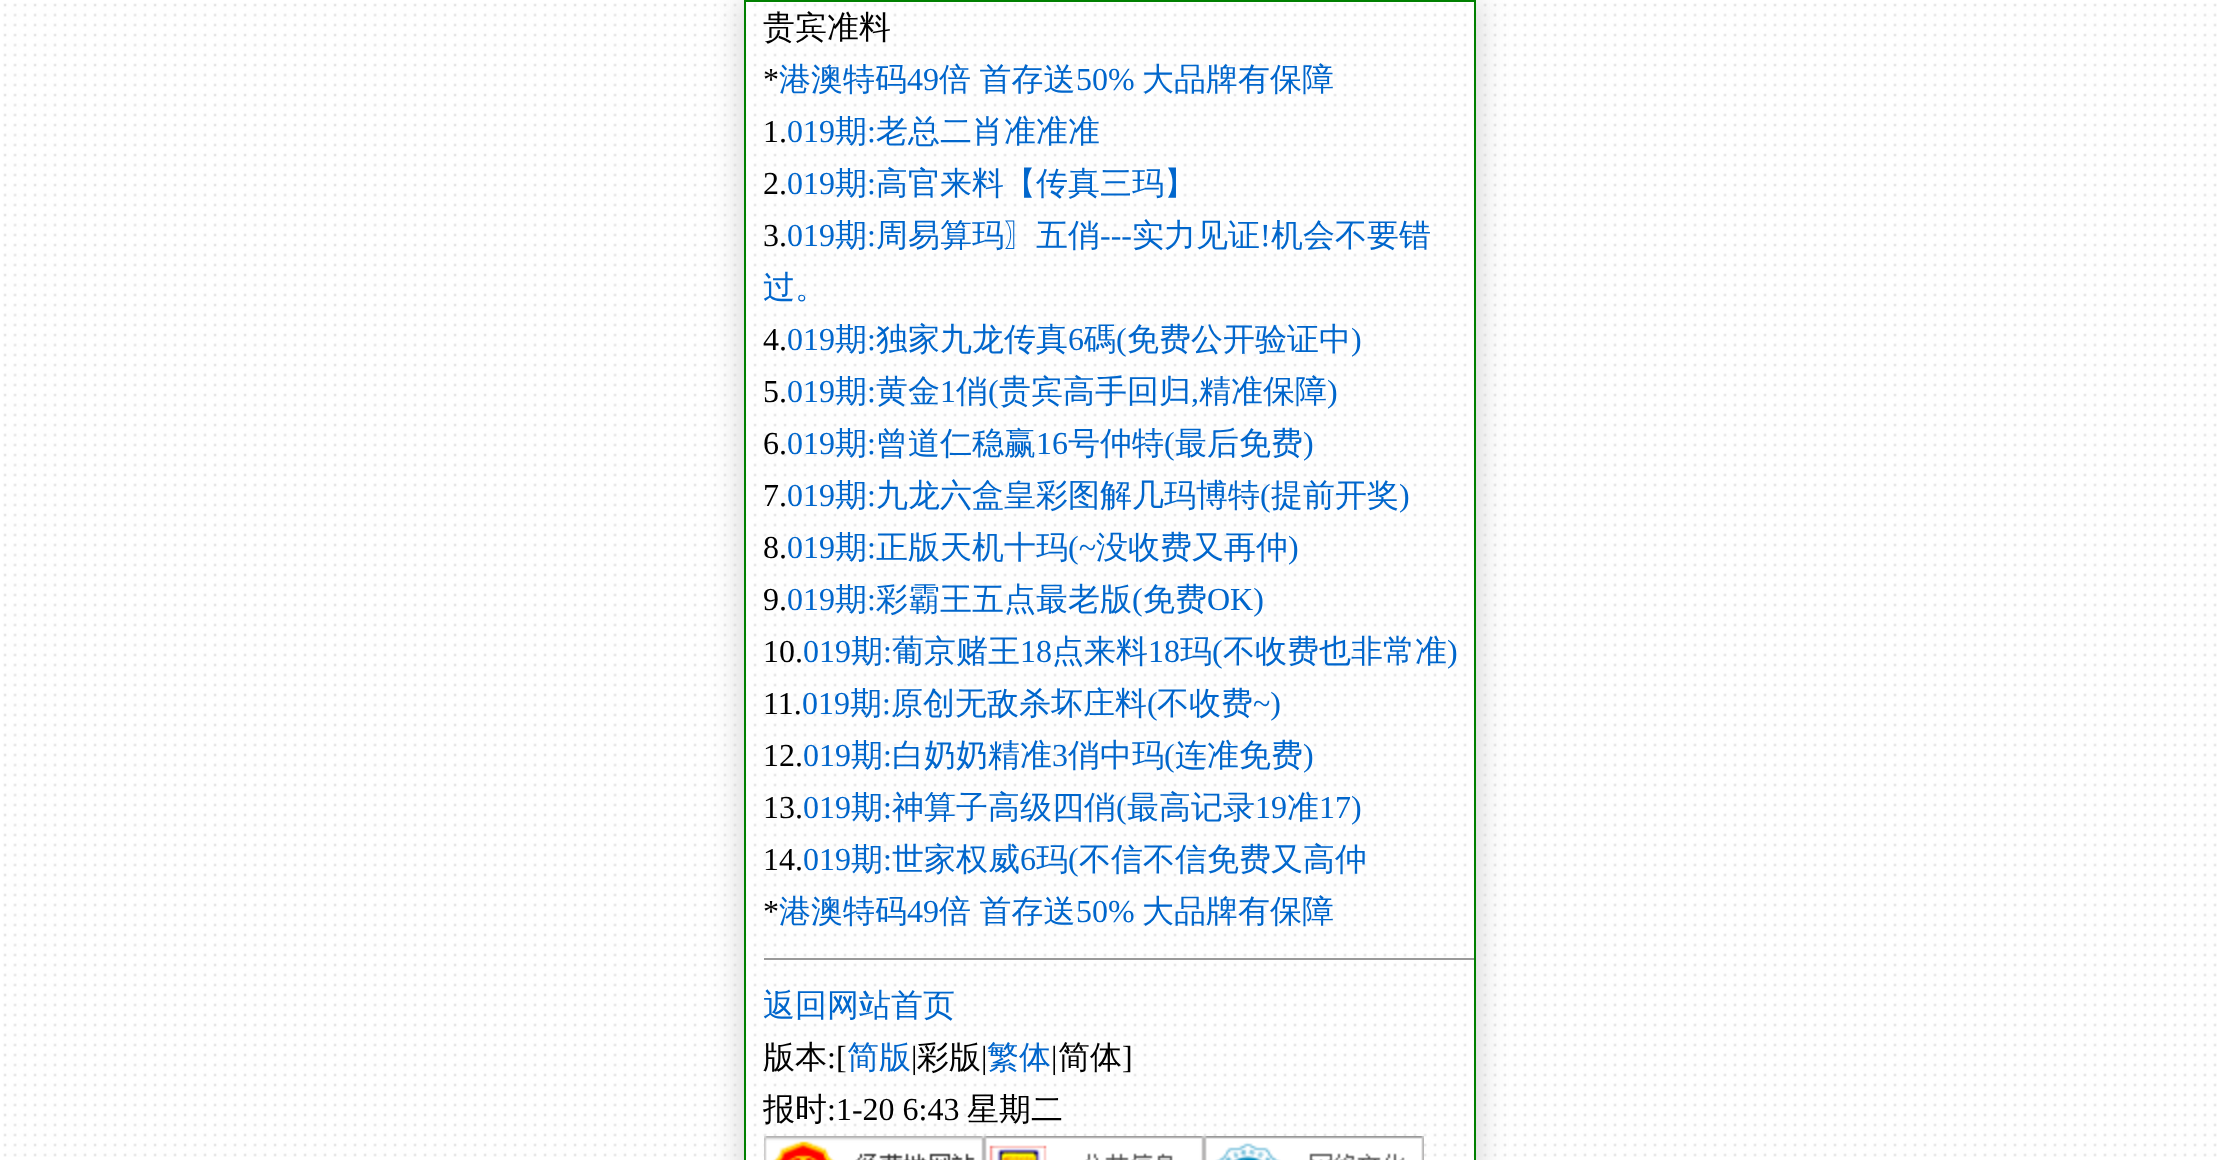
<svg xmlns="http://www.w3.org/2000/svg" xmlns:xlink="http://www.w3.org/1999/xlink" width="2218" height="1160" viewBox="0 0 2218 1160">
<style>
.cls-1{font:500 32px WenQuanYi Zen Hei;fill:#000000}
.cls-2{font:32px Liberation Serif;fill:#000000}
.cls-3{font:500 32px WenQuanYi Zen Hei;fill:#0066cc}
.cls-4{font:32px Liberation Serif;fill:#0066cc}
</style>
<defs>
<clipPath id="clip1"><path d="M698 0H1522V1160H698ZM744 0H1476V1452H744Z" clip-rule="evenodd"/></clipPath>
</defs>
<rect width="100%" height="100%" fill="#ffffff"/>
<image xlink:href="image0.png" x="3" y="3" width="2214" height="1154"/>
<g clip-path="url(#clip1)">
<rect fill="#cccccc" filter="blur(15px)" x="744" y="0" width="732" height="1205"/>
</g>
<rect fill="none" stroke="#008000" stroke-width="2" x="745" y="1" width="730" height="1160"/>
<rect fill="#999999" x="764" y="958" width="710" height="2"/>
<image xlink:href="image1.png" x="764" y="1136" width="220" height="24"/>
<image xlink:href="image2.png" x="984" y="1136" width="220" height="24"/>
<image xlink:href="image3.png" x="1204" y="1136" width="220" height="24"/>
<text class="cls-1" x="763" y="38">贵宾准料</text>
<text class="cls-2" x="763" y="90">*</text>
<text class="cls-3" x="779" y="90">港澳特码</text>
<text class="cls-4" x="907" y="90">49</text>
<text class="cls-3" x="939" y="90" word-spacing="-1">倍 首存送</text>
<text class="cls-4" x="1076" y="90">50%</text>
<text class="cls-3" x="1142" y="90">大品牌有保障</text>
<text class="cls-2" x="763" y="142">1.</text>
<text class="cls-4" x="787" y="142">019</text>
<text class="cls-3" x="835" y="142">期</text>
<text class="cls-4" x="867" y="142">:</text>
<text class="cls-3" x="876" y="142">老总二肖准准准</text>
<text class="cls-2" x="763" y="194">2.</text>
<text class="cls-4" x="787" y="194">019</text>
<text class="cls-3" x="835" y="194">期</text>
<text class="cls-4" x="867" y="194">:</text>
<text class="cls-3" x="876" y="194">高官来料【传真三玛】</text>
<text class="cls-2" x="763" y="246">3.</text>
<text class="cls-4" x="787" y="246">019</text>
<text class="cls-3" x="835" y="246">期</text>
<text class="cls-4" x="867" y="246">:</text>
<text class="cls-3" x="876" y="246">周易算玛〗五俏</text>
<text class="cls-4" x="1100" y="246">---</text>
<text class="cls-3" x="1132" y="246">实力见证</text>
<text class="cls-4" x="1260" y="246">!</text>
<text class="cls-3" x="1271" y="246">机会不要错</text>
<text class="cls-3" x="763" y="298">过。</text>
<text class="cls-2" x="763" y="350">4.</text>
<text class="cls-4" x="787" y="350">019</text>
<text class="cls-3" x="835" y="350">期</text>
<text class="cls-4" x="867" y="350">:</text>
<text class="cls-3" x="876" y="350">独家九龙传真</text>
<text class="cls-4" x="1068" y="350">6</text>
<text class="cls-3" x="1084" y="350">碼</text>
<text class="cls-4" x="1116" y="350">(</text>
<text class="cls-3" x="1127" y="350">免费公开验证中</text>
<text class="cls-4" x="1351" y="350">)</text>
<text class="cls-2" x="763" y="402">5.</text>
<text class="cls-4" x="787" y="402">019</text>
<text class="cls-3" x="835" y="402">期</text>
<text class="cls-4" x="867" y="402">:</text>
<text class="cls-3" x="876" y="402">黄金</text>
<text class="cls-4" x="940" y="402">1</text>
<text class="cls-3" x="956" y="402">俏</text>
<text class="cls-4" x="988" y="402">(</text>
<text class="cls-3" x="999" y="402">贵宾高手回归</text>
<text class="cls-4" x="1191" y="402">,</text>
<text class="cls-3" x="1199" y="402">精准保障</text>
<text class="cls-4" x="1327" y="402">)</text>
<text class="cls-2" x="763" y="454">6.</text>
<text class="cls-4" x="787" y="454">019</text>
<text class="cls-3" x="835" y="454">期</text>
<text class="cls-4" x="867" y="454">:</text>
<text class="cls-3" x="876" y="454">曾道仁稳赢</text>
<text class="cls-4" x="1036" y="454">16</text>
<text class="cls-3" x="1068" y="454">号仲特</text>
<text class="cls-4" x="1164" y="454">(</text>
<text class="cls-3" x="1175" y="454">最后免费</text>
<text class="cls-4" x="1303" y="454">)</text>
<text class="cls-2" x="763" y="506">7.</text>
<text class="cls-4" x="787" y="506">019</text>
<text class="cls-3" x="835" y="506">期</text>
<text class="cls-4" x="867" y="506">:</text>
<text class="cls-3" x="876" y="506">九龙六盒皇彩图解几玛博特</text>
<text class="cls-4" x="1260" y="506">(</text>
<text class="cls-3" x="1271" y="506">提前开奖</text>
<text class="cls-4" x="1399" y="506">)</text>
<text class="cls-2" x="763" y="558">8.</text>
<text class="cls-4" x="787" y="558">019</text>
<text class="cls-3" x="835" y="558">期</text>
<text class="cls-4" x="867" y="558">:</text>
<text class="cls-3" x="876" y="558">正版天机十玛</text>
<text class="cls-4" x="1068" y="558">(~</text>
<text class="cls-3" x="1096" y="558">没收费又再仲</text>
<text class="cls-4" x="1288" y="558">)</text>
<text class="cls-2" x="763" y="610">9.</text>
<text class="cls-4" x="787" y="610">019</text>
<text class="cls-3" x="835" y="610">期</text>
<text class="cls-4" x="867" y="610">:</text>
<text class="cls-3" x="876" y="610">彩霸王五点最老版</text>
<text class="cls-4" x="1132" y="610">(</text>
<text class="cls-3" x="1143" y="610">免费</text>
<text class="cls-4" x="1207" y="610">OK)</text>
<text class="cls-2" x="763" y="662">10.</text>
<text class="cls-4" x="803" y="662">019</text>
<text class="cls-3" x="851" y="662">期</text>
<text class="cls-4" x="883" y="662">:</text>
<text class="cls-3" x="892" y="662">葡京赌王</text>
<text class="cls-4" x="1020" y="662">18</text>
<text class="cls-3" x="1052" y="662">点来料</text>
<text class="cls-4" x="1148" y="662">18</text>
<text class="cls-3" x="1180" y="662">玛</text>
<text class="cls-4" x="1212" y="662">(</text>
<text class="cls-3" x="1223" y="662">不收费也非常准</text>
<text class="cls-4" x="1447" y="662">)</text>
<text class="cls-2" x="763" y="714">11.</text>
<text class="cls-4" x="802" y="714">019</text>
<text class="cls-3" x="850" y="714">期</text>
<text class="cls-4" x="882" y="714">:</text>
<text class="cls-3" x="891" y="714">原创无敌杀坏庄料</text>
<text class="cls-4" x="1147" y="714">(</text>
<text class="cls-3" x="1157" y="714">不收费</text>
<text class="cls-4" x="1253" y="714">~)</text>
<text class="cls-2" x="763" y="766">12.</text>
<text class="cls-4" x="803" y="766">019</text>
<text class="cls-3" x="851" y="766">期</text>
<text class="cls-4" x="883" y="766">:</text>
<text class="cls-3" x="892" y="766">白奶奶精准</text>
<text class="cls-4" x="1052" y="766">3</text>
<text class="cls-3" x="1068" y="766">俏中玛</text>
<text class="cls-4" x="1164" y="766">(</text>
<text class="cls-3" x="1175" y="766">连准免费</text>
<text class="cls-4" x="1303" y="766">)</text>
<text class="cls-2" x="763" y="818">13.</text>
<text class="cls-4" x="803" y="818">019</text>
<text class="cls-3" x="851" y="818">期</text>
<text class="cls-4" x="883" y="818">:</text>
<text class="cls-3" x="892" y="818">神算子高级四俏</text>
<text class="cls-4" x="1116" y="818">(</text>
<text class="cls-3" x="1127" y="818">最高记录</text>
<text class="cls-4" x="1255" y="818">19</text>
<text class="cls-3" x="1287" y="818">准</text>
<text class="cls-4" x="1319" y="818">17)</text>
<text class="cls-2" x="763" y="870">14.</text>
<text class="cls-4" x="803" y="870">019</text>
<text class="cls-3" x="851" y="870">期</text>
<text class="cls-4" x="883" y="870">:</text>
<text class="cls-3" x="892" y="870">世家权威</text>
<text class="cls-4" x="1020" y="870">6</text>
<text class="cls-3" x="1036" y="870">玛</text>
<text class="cls-4" x="1068" y="870">(</text>
<text class="cls-3" x="1079" y="870">不信不信免费又高仲</text>
<text class="cls-2" x="763" y="922">*</text>
<text class="cls-3" x="779" y="922">港澳特码</text>
<text class="cls-4" x="907" y="922">49</text>
<text class="cls-3" x="939" y="922" word-spacing="-1">倍 首存送</text>
<text class="cls-4" x="1076" y="922">50%</text>
<text class="cls-3" x="1142" y="922">大品牌有保障</text>
<text class="cls-3" x="763" y="1016">返回网站首页</text>
<text class="cls-1" x="763" y="1068">版本</text>
<text class="cls-2" x="827" y="1068">:[</text>
<text class="cls-3" x="847" y="1068">简版</text>
<text class="cls-2" x="911" y="1068">|</text>
<text class="cls-1" x="917" y="1068">彩版</text>
<text class="cls-2" x="981" y="1068">|</text>
<text class="cls-3" x="987" y="1068">繁体</text>
<text class="cls-2" x="1051" y="1068">|</text>
<text class="cls-1" x="1058" y="1068">简体</text>
<text class="cls-2" x="1122" y="1068">]</text>
<text class="cls-1" x="763" y="1120">报时</text>
<text class="cls-2" x="827" y="1120">:1-20 6:43</text>
<text class="cls-1" x="967" y="1120">星期二</text>
</svg>
